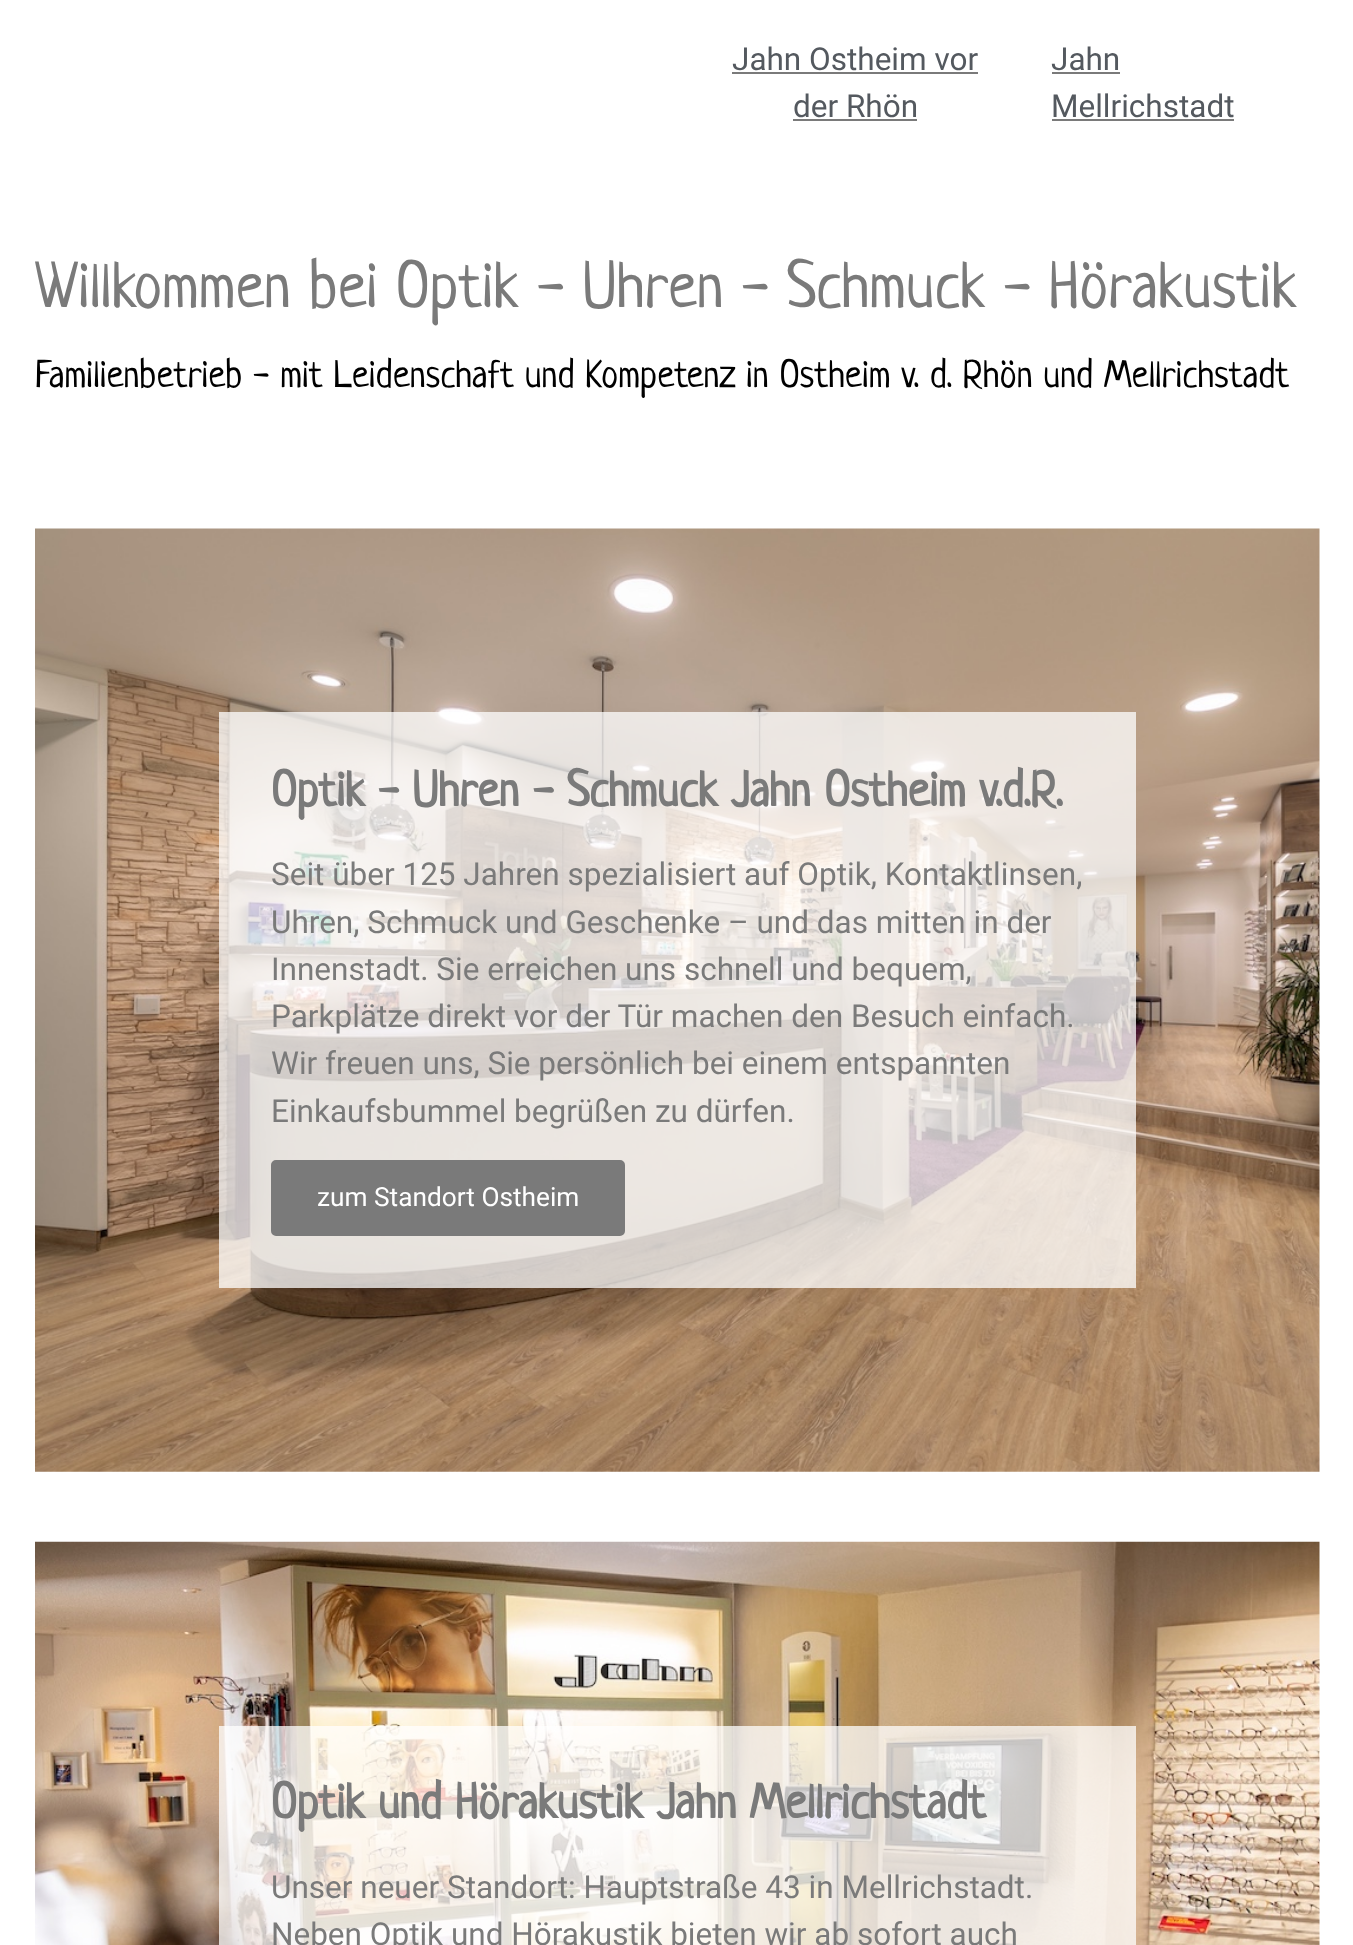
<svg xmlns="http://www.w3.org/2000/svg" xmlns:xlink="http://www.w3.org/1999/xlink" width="1353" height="1945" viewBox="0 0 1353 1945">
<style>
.cls-1{font:31.5px Roboto;fill:#54595f}
.cls-2{font:64.75px Neucha;fill:#7a7a7a}
.cls-3{font:38.5px Neucha;fill:#000000}
.cls-4{font:bold 49px Neucha;fill:#7a7a7a}
.cls-5{font:31.5px Roboto;fill:#7a7a7a}
.cls-6{font:26.25px Roboto;fill:#ffffff}
</style>
<rect width="100%" height="100%" fill="#ffffff"/>
<rect fill="#7a7a7a" x="732" y="72" width="246" height="2"/>
<rect fill="#7a7a7a" x="793" y="119" width="124" height="2"/>
<rect fill="#7a7a7a" x="1052" y="72" width="68" height="2"/>
<rect fill="#7a7a7a" x="1052" y="119" width="182" height="2"/>
<image xlink:href="image0.png" x="35" y="528" width="1285" height="944"/>
<rect fill="#ffffff" fill-opacity="0.75" x="219" y="712" width="917" height="576"/>
<rect fill="#7a7a7a" stroke="#7a7a7a" stroke-width="4" x="273" y="1162" width="350" height="72" rx="3"/>
<image xlink:href="image1.png" x="35" y="1541" width="1285" height="404"/>
<rect fill="#ffffff" fill-opacity="0.75" x="219" y="1726" width="917" height="219"/>
<text class="cls-1" x="732" y="70">Jahn Ostheim vor</text>
<text class="cls-1" x="793" y="117">der Rhön</text>
<text class="cls-1"><tspan x="1051" y="70">Jahn</tspan><tspan x="1051" y="117">Mellrichstadt</tspan></text>
<text class="cls-2" x="35" y="307">Willkommen bei Optik - Uhren - Schmuck - Hörakustik</text>
<text class="cls-3" x="35" y="387">Familienbetrieb - mit Leidenschaft und Kompetenz in Ostheim v. d. Rhön und Mellrichstadt</text>
<text class="cls-4" x="271" y="806">Optik - Uhren - Schmuck Jahn Ostheim v.d.R.</text>
<text class="cls-5"><tspan x="271" y="885">Seit über 125 Jahren spezialisiert auf Optik, Kontaktlinsen,</tspan><tspan x="271" y="933">Uhren, Schmuck und Geschenke – und das mitten in der</tspan><tspan x="271" y="980">Innenstadt. Sie erreichen uns schnell und bequem,</tspan><tspan x="271" y="1027">Parkplätze direkt vor der Tür machen den Besuch einfach.</tspan><tspan x="271" y="1074">Wir freuen uns, Sie persönlich bei einem entspannten</tspan><tspan x="271" y="1122">Einkaufsbummel begrüßen zu dürfen.</tspan></text>
<text class="cls-6" x="317" y="1206">zum Standort Ostheim</text>
<text class="cls-4" x="271" y="1818">Optik und Hörakustik Jahn Mellrichstadt</text>
<text class="cls-5"><tspan x="271" y="1898">Unser neuer Standort: Hauptstraße 43 in Mellrichstadt.</tspan><tspan x="271" y="1945">Neben Optik und Hörakustik bieten wir ab sofort auch</tspan></text>
</svg>
